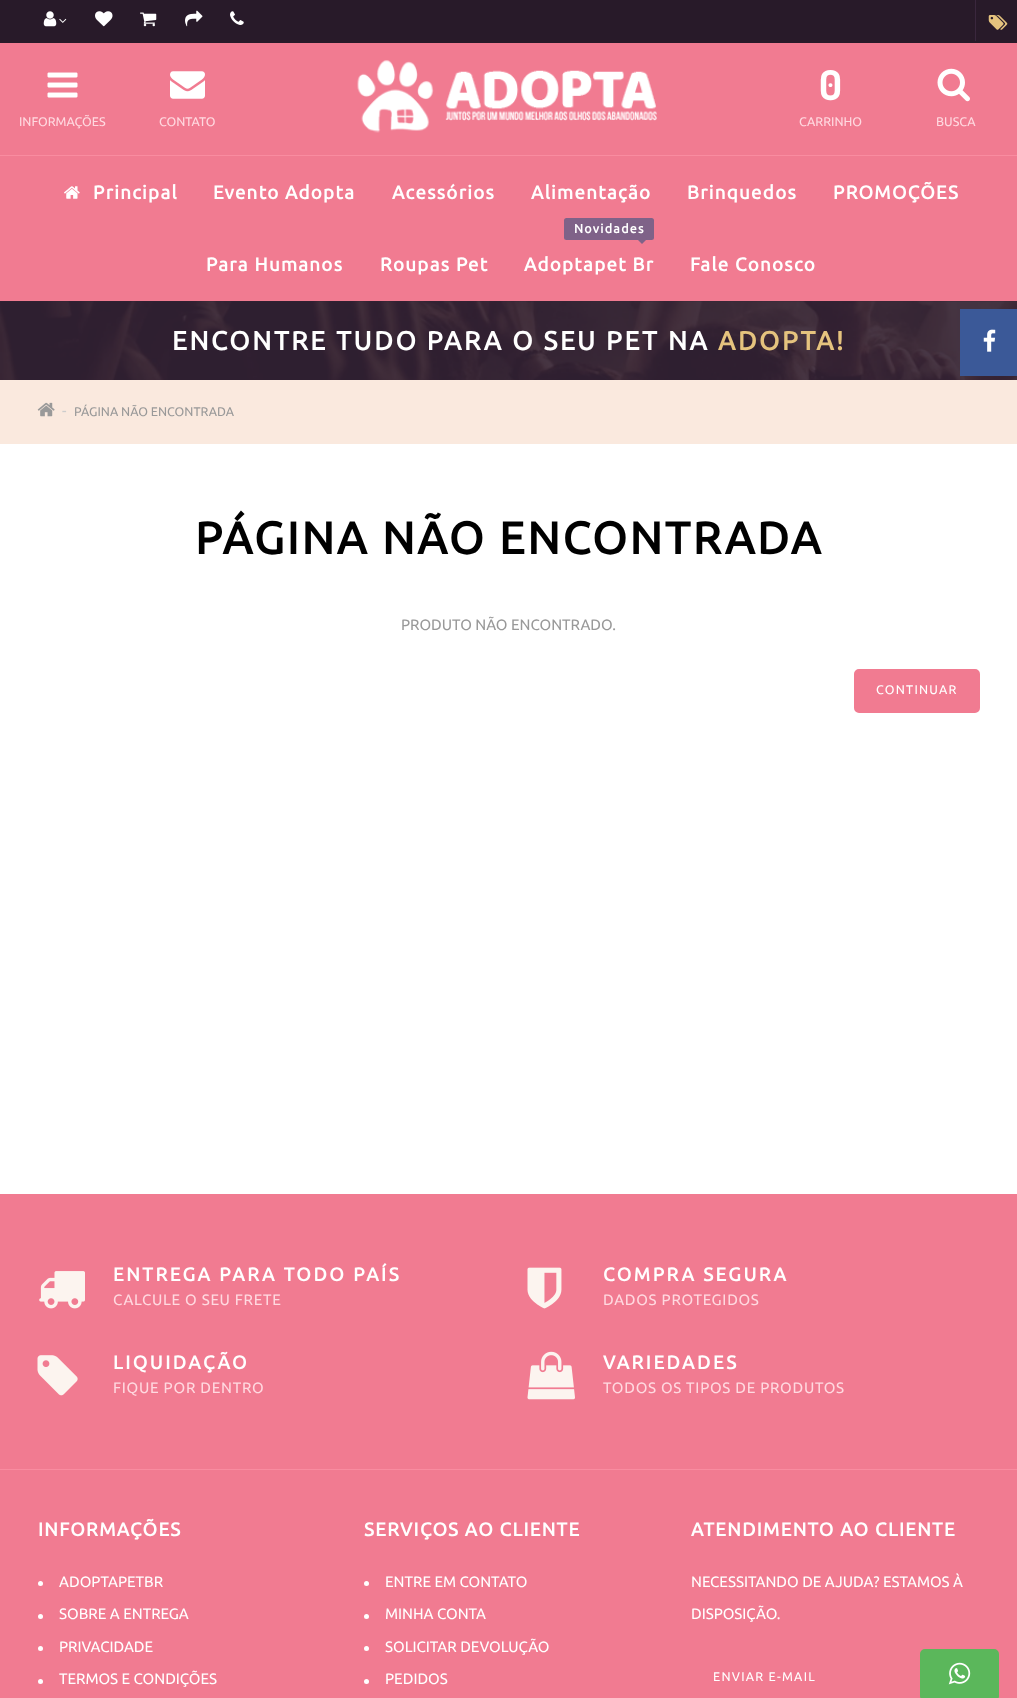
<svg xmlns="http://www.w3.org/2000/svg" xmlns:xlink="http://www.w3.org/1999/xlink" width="1017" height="1698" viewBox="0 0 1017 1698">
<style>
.cls-1{font:12.5px Ubuntu;fill:#ffd9e0}
.cls-2{font:bold 41px Dosis;fill:#ffffff}
.cls-3{font:bold 18.75px Ubuntu;letter-spacing:1.25px;fill:#ffffff}
.cls-4{font:bold 12.5px Ubuntu;letter-spacing:1.25px;fill:#ffffff}
.cls-5{font:bold 26.25px Ubuntu;letter-spacing:2.5px;fill:#ffffff}
.cls-6{font:bold 26.25px Ubuntu;letter-spacing:2.5px;fill:#e5c37e}
.cls-7{font:15px Ubuntu;fill:#cccccc}
.cls-8{font:12.5px Ubuntu;fill:#999999}
.cls-9{font:bold 45px Ubuntu;letter-spacing:2.5px;fill:#000000}
.cls-10{font:15px Ubuntu;fill:#999999}
.cls-11{font:12.5px Ubuntu;letter-spacing:1.25px;fill:#ffffff}
.cls-12{font:bold 18.75px Ubuntu;letter-spacing:2.5px;fill:#ffffff}
.cls-13{font:15px Ubuntu;letter-spacing:0.75px;fill:#ffd9e0}
.cls-14{font:15px Ubuntu;fill:#ffffff}
</style>
<rect width="100%" height="100%" fill="#fae9de"/>
<rect fill="#281a29" x="0" y="0" width="1017" height="43"/>
<rect fill="#3a273d" x="975" y="0" width="1" height="41"/>
<image xlink:href="image0.png" x="988" y="15" width="20" height="15"/>
<image xlink:href="image1.png" x="43" y="11" width="14" height="16"/>
<image xlink:href="image2.png" x="59" y="18" width="8" height="5"/>
<image xlink:href="image3.png" x="95" y="11" width="18" height="16"/>
<image xlink:href="image4.png" x="140" y="12" width="17" height="15"/>
<image xlink:href="image5.png" x="185" y="10" width="18" height="17"/>
<image xlink:href="image6.png" x="230" y="11" width="14" height="14"/>
<rect fill="#f17b91" x="0" y="43" width="1017" height="112"/>
<image xlink:href="image7.png" x="47" y="72" width="31" height="26"/>
<image xlink:href="image8.png" x="170" y="71" width="35" height="28"/>
<image xlink:href="image9.png" x="357" y="60" width="300" height="73"/>
<image xlink:href="image10.png" x="937" y="68" width="33" height="34"/>
<rect fill="#f17b91" x="0" y="156" width="1017" height="145"/>
<rect fill="#f98ca0" x="0" y="155" width="1017" height="1"/>
<image xlink:href="image11.png" x="64" y="186" width="16" height="13"/>
<rect fill="#7f6288" x="564" y="218" width="90" height="22" rx="2.5"/>
<rect fill="#342336" x="0" y="301" width="1017" height="79"/>
<image xlink:href="image12.png" x="0" y="301" width="1017" height="79"/>
<image xlink:href="image13.png" x="37" y="402" width="18" height="15"/>
<rect fill="#ffffff" x="0" y="444" width="1017" height="750"/>
<rect fill="#f17b91" stroke="#f17b91" stroke-width="4" x="856" y="671" width="122" height="40" rx="3"/>
<rect fill="#f17b91" x="0" y="1194" width="1017" height="275"/>
<image xlink:href="image14.png" x="39" y="1271" width="46" height="38"/>
<image xlink:href="image15.png" x="527" y="1267" width="35" height="42"/>
<image xlink:href="image16.png" x="37" y="1355" width="41" height="41"/>
<image xlink:href="image17.png" x="527" y="1351" width="48" height="49"/>
<rect fill="#f17b91" x="0" y="1470" width="1017" height="228"/>
<rect fill="#f98ca0" x="0" y="1469" width="1017" height="1"/>
<circle fill="#ffffff" cx="40.5" cy="1583.5" r="2.5"/>
<circle fill="#ffffff" cx="40.5" cy="1616.5" r="2.5"/>
<circle fill="#ffffff" cx="40.5" cy="1648.5" r="2.5"/>
<circle fill="#ffffff" cx="40.5" cy="1681.5" r="2.5"/>
<circle fill="#ffffff" cx="366.5" cy="1583.5" r="2.5"/>
<circle fill="#ffffff" cx="366.5" cy="1616.5" r="2.5"/>
<circle fill="#ffffff" cx="366.5" cy="1648.5" r="2.5"/>
<circle fill="#ffffff" cx="366.5" cy="1681.5" r="2.5"/>
<rect fill="#3b5998" x="960" y="309" width="57" height="67"/>
<image xlink:href="image18.png" x="983" y="329" width="13" height="23"/>
<rect fill="#5bb75b" stroke="#5bb75b" stroke-width="4" x="922" y="1651" width="75" height="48" rx="3"/>
<image xlink:href="image19.png" x="948" y="1662" width="23" height="23"/>
<text class="cls-1" x="19" y="126">INFORMAÇÕES</text>
<text class="cls-1" x="159" y="126">CONTATO</text>
<text class="cls-2" x="819" y="100">0</text>
<text class="cls-1" x="799" y="126">CARRINHO</text>
<text class="cls-1" x="936" y="126">BUSCA</text>
<text class="cls-3" x="93" y="199">Principal</text>
<text class="cls-3" x="213" y="199">Evento Adopta</text>
<text class="cls-3" x="392" y="199">Acessórios</text>
<text class="cls-3" x="531" y="199">Alimentação</text>
<text class="cls-3" x="687" y="199">Brinquedos</text>
<text class="cls-3" x="833" y="199">PROMOÇÕES</text>
<text class="cls-3" x="206" y="271">Para Humanos</text>
<text class="cls-3" x="380" y="271">Roupas Pet</text>
<text class="cls-4" x="574" y="233">Novidades</text>
<path fill="#7f6288" d="M642 233.5L647 239L642 244L636.5 238.5Z"/>
<text class="cls-3" x="524" y="271">Adoptapet Br</text>
<text class="cls-3" x="690" y="271">Fale Conosco</text>
<text class="cls-5" x="172" y="350">ENCONTRE TUDO PARA O SEU PET NA</text>
<text class="cls-6" x="718" y="350">ADOPTA!</text>
<text class="cls-7" x="62" y="416">-</text>
<text class="cls-8" x="74" y="416">PÁGINA NÃO ENCONTRADA</text>
<text class="cls-9" x="195" y="554">PÁGINA NÃO ENCONTRADA</text>
<text class="cls-10" x="401" y="630">PRODUTO NÃO ENCONTRADO.</text>
<text class="cls-11" x="876" y="694">CONTINUAR</text>
<text class="cls-12" x="113" y="1281">ENTREGA PARA TODO PAÍS</text>
<text class="cls-13" x="113" y="1305">CALCULE O SEU FRETE</text>
<text class="cls-12" x="603" y="1281">COMPRA SEGURA</text>
<text class="cls-13" x="603" y="1305">DADOS PROTEGIDOS</text>
<text class="cls-12" x="113" y="1369">LIQUIDAÇÃO</text>
<text class="cls-13" x="113" y="1393">FIQUE POR DENTRO</text>
<text class="cls-12" x="603" y="1369">VARIEDADES</text>
<text class="cls-13" x="603" y="1393">TODOS OS TIPOS DE PRODUTOS</text>
<text class="cls-3" x="38" y="1536">INFORMAÇÕES</text>
<text class="cls-14" x="59" y="1587">ADOPTAPETBR</text>
<text class="cls-14" x="59" y="1619">SOBRE A ENTREGA</text>
<text class="cls-14" x="59" y="1652">PRIVACIDADE</text>
<text class="cls-14" x="59" y="1684">TERMOS E CONDIÇÕES</text>
<text class="cls-3" x="364" y="1536">SERVIÇOS AO CLIENTE</text>
<text class="cls-14" x="385" y="1587">ENTRE EM CONTATO</text>
<text class="cls-14" x="385" y="1619">MINHA CONTA</text>
<text class="cls-14" x="385" y="1652">SOLICITAR DEVOLUÇÃO</text>
<text class="cls-14" x="385" y="1684">PEDIDOS</text>
<text class="cls-3" x="691" y="1536">ATENDIMENTO AO CLIENTE</text>
<text class="cls-14" x="691" y="1587">NECESSITANDO DE AJUDA? ESTAMOS À</text>
<text class="cls-14" x="691" y="1619">DISPOSIÇÃO.</text>
<text class="cls-11" x="713" y="1681">ENVIAR E-MAIL</text>
</svg>
